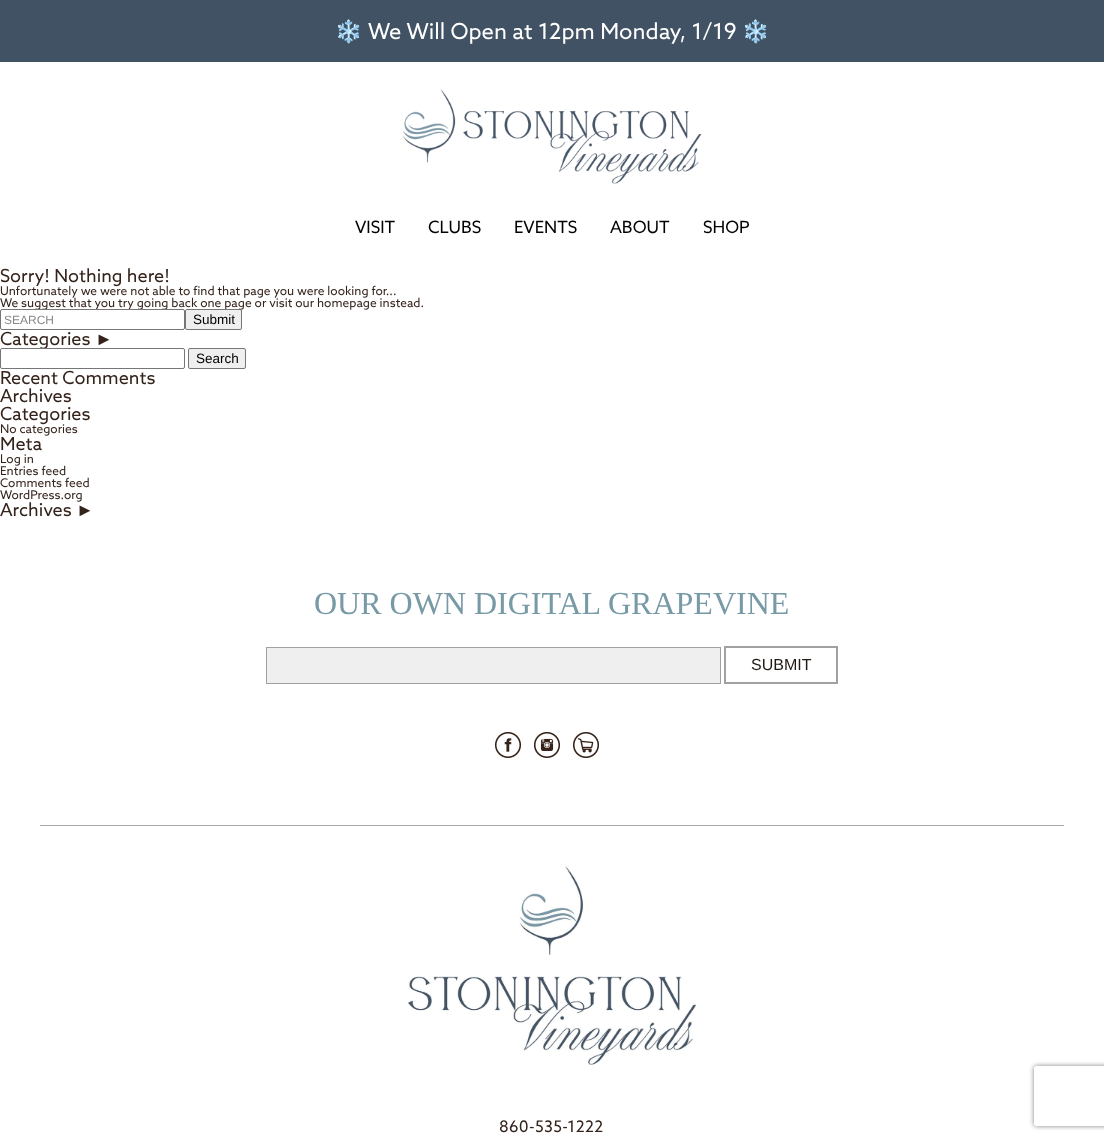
<svg xmlns="http://www.w3.org/2000/svg" xmlns:xlink="http://www.w3.org/1999/xlink" width="1104" height="1140" viewBox="0 0 1104 1140">
<style>
.cls-1{font:22px Noto Color Emoji;fill:#ffffff}
.cls-2{font:22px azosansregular;fill:#ffffff}
.cls-3{font:17px azosansregular;fill:#000000}
.cls-4{font:18px azosansregular;fill:#34231b}
.cls-5{font:12px azosansregular;fill:#34231b}
.cls-6{font:12px Liberation Sans;fill:#888888}
.cls-7{font:13.5px Liberation Sans;fill:#000000}
.cls-8{font:18px Liberation Serif;fill:#34231b}
.cls-9{font:32px Liberation Serif;fill:#779aa6}
.cls-10{font:16px Liberation Sans;fill:#221914}
.cls-11{font:16px azosansregular;letter-spacing:0.3px;fill:#34231b}
</style>
<defs>
<clipPath id="clip1"><path d="M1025 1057H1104V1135H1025ZM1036 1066H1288C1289 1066 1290 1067 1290 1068V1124C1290 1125 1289 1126 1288 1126H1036C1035 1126 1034 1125 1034 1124V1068C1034 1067 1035 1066 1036 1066Z" clip-rule="evenodd"/></clipPath>
</defs>
<rect width="100%" height="100%" fill="#ffffff"/>
<rect fill="#405264" x="0" y="0" width="1104" height="62"/>
<image xlink:href="image0.png" x="402" y="89" width="300" height="95"/>
<rect fill="#efefef" stroke="#767676" x="188.5" y="348.5" width="57" height="20" rx="1.5"/>
<rect fill="#efefef" stroke="#a1a1a1" x="266.5" y="647.5" width="454" height="36"/>
<rect fill="none" stroke="#a1a1a1" stroke-width="2" x="725" y="647" width="112" height="36"/>
<image xlink:href="image1.png" x="495" y="732" width="26" height="26"/>
<image xlink:href="image2.png" x="534" y="732" width="26" height="26"/>
<image xlink:href="image3.png" x="573" y="732" width="26" height="26"/>
<rect fill="#aaaaaa" x="40" y="825" width="1024" height="1"/>
<image xlink:href="image4.png" x="408" y="865" width="288" height="200"/>
<g clip-path="url(#clip1)">
<rect fill="#808080" filter="blur(2.5px)" x="1034" y="1066" width="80" height="60" rx="2"/>
</g>
<text class="cls-1" x="335" y="39">❄️</text>
<text class="cls-2" x="368" y="39">We Will Open at 12pm Monday, 1/19</text>
<text class="cls-1" x="742" y="39">❄️</text>
<text class="cls-3" x="355" y="233">VISIT</text>
<text class="cls-3" x="428" y="233">CLUBS</text>
<text class="cls-3" x="514" y="233">EVENTS</text>
<text class="cls-3" x="610" y="233">ABOUT</text>
<text class="cls-3" x="703" y="233">SHOP</text>
<text class="cls-4" x="0" y="282">Sorry! Nothing here!</text>
<text class="cls-5"><tspan x="0" y="295">Unfortunately we were not able to find that page you were looking for...</tspan><tspan x="0" y="307">We suggest that you try going back one page or visit our homepage instead.</tspan></text>
<rect fill="#ffffff" stroke="#767676" x="0.5" y="309.5" width="184" height="20" rx="1.5"/>
<text class="cls-6" x="4" y="324">SEARCH</text>
<rect fill="#efefef" stroke="#767676" x="185.5" y="309.5" width="56" height="20" rx="1.5"/>
<text class="cls-7" x="193" y="324">Submit</text>
<text class="cls-4" x="0" y="345">Categories</text>
<text class="cls-8" x="95" y="345">►</text>
<rect fill="#ffffff" stroke="#767676" x="0.5" y="348.5" width="184" height="20" rx="1.5"/>
<text class="cls-7" x="196" y="363">Search</text>
<text class="cls-4"><tspan x="0" y="384">Recent Comments</tspan><tspan x="0" y="402">Archives</tspan><tspan x="0" y="420">Categories</tspan></text>
<text class="cls-5" x="0" y="433">No categories</text>
<text class="cls-4" x="0" y="450">Meta</text>
<text class="cls-5"><tspan x="0" y="463">Log in</tspan><tspan x="0" y="475">Entries feed</tspan><tspan x="0" y="487">Comments feed</tspan><tspan x="0" y="499">WordPress.org</tspan></text>
<text class="cls-4" x="0" y="516">Archives</text>
<text class="cls-8" x="76" y="516">►</text>
<text class="cls-9" x="314" y="614">OUR OWN DIGITAL GRAPEVINE</text>
<text class="cls-10" x="751" y="670">SUBMIT</text>
<text class="cls-11" x="499" y="1132">860-535-1222</text>
</svg>
